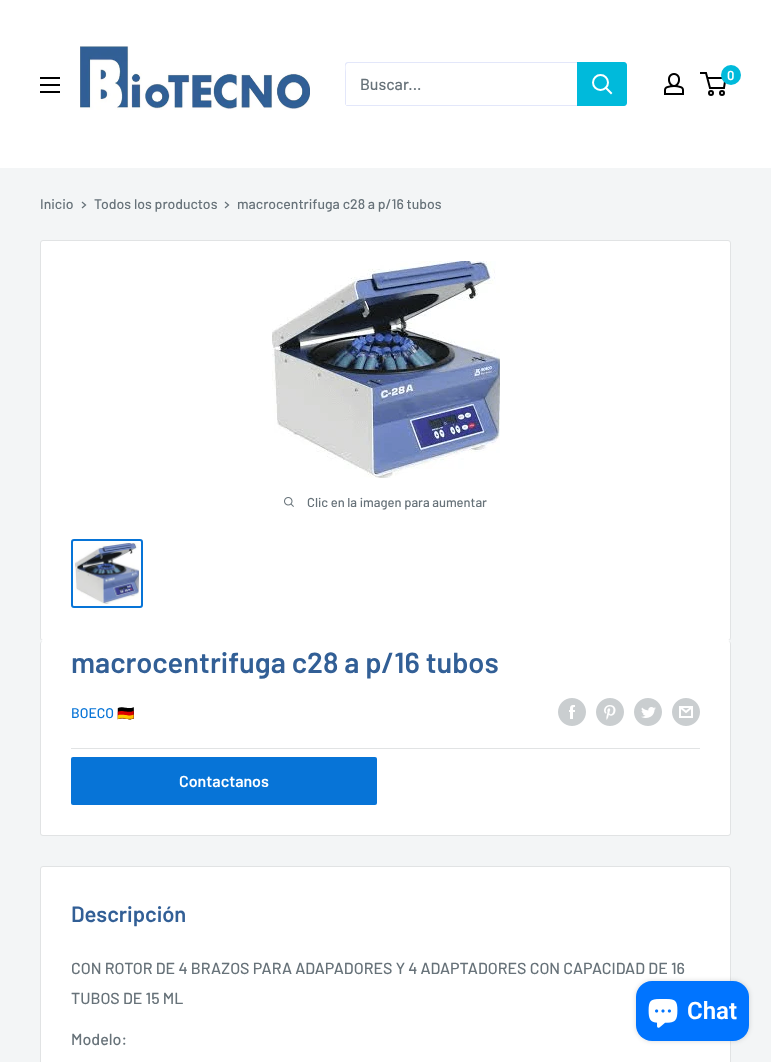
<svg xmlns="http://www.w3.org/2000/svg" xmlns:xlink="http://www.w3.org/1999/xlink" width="771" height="1062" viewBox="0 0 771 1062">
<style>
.cls-1{font:600 13px Barlow;fill:#ffffff}
.cls-2{font:500 16px Barlow;fill:#677279}
.cls-3{font:500 14px Barlow;fill:#677279}
.cls-4{font:500 13px Barlow;fill:#677279}
.cls-5{font:600 29px Barlow;fill:#325f96}
.cls-6{font:500 14px Barlow;fill:#0774d7}
.cls-7{font:14px Noto Color Emoji;fill:#0774d7}
.cls-8{font:600 16px Barlow;fill:#ffffff}
.cls-9{font:600 22px Barlow;fill:#325f96}
.cls-10{font:600 24px Roboto;fill:#ffffff}
</style>
<rect width="100%" height="100%" fill="#f3f5f6"/>
<rect fill="#ffffff" x="0" y="0" width="771" height="168"/>
<image xlink:href="image0.png" x="80" y="46" width="230" height="64"/>
<image xlink:href="image1.png" x="664" y="73" width="20" height="22"/>
<circle fill="none" stroke="#000000" stroke-width="2" cx="711" cy="93" r="2"/>
<circle fill="none" stroke="#000000" stroke-width="2" cx="722" cy="93" r="2"/>
<path fill="none" stroke="#000000" stroke-width="2" d="M707.5 78H725.5L724 88H710L706 73H700"/>
<circle fill="#00badb" cx="731" cy="75" r="10"/>
<image xlink:href="image2.png" x="40" y="77" width="20" height="16"/>
<path fill="#e3e7fa" d="M346 105C346 106 347 106 348 106H624C626 106 627 105 627 103V65C627 64 627 63 626 63V96C626 98 628 105 623 105Z"/>
<path fill="#e3e7fa" d="M349 63H626C626 62 625 62 624 62H348C346 62 345 63 345 65V103C345 104 345 105 346 105V72C346 70 344 63 349 63Z"/>
<path fill="#00badb" d="M577 62H624C625.5 62 627 63.5 627 65V103C627 104.5 625.5 106 624 106H577Z"/>
<path fill="none" stroke="#ffffff" stroke-width="2" stroke-linecap="square" d="M611 93L606 88"/>
<circle fill="none" stroke="#ffffff" stroke-width="2" cx="600.5" cy="82.5" r="7.5"/>
<path fill="none" stroke="#677279" stroke-width="1.3" stroke-linecap="square" d="M82.5 202.5L85.5 205L82.5 207.5"/>
<path fill="none" stroke="#677279" stroke-width="1.3" stroke-linecap="square" d="M225.5 202.5L228.5 205L225.5 207.5"/>
<rect fill="#ffffff" stroke="#e1e3e4" x="40.5" y="240.5" width="690" height="400" rx="2.5"/>
<image xlink:href="image3.png" x="272" y="261" width="228" height="217"/>
<image xlink:href="image4.png" x="284" y="497" width="10" height="10"/>
<rect fill="none" stroke="#0774d7" stroke-width="2" x="72" y="540" width="70" height="67" rx="2"/>
<image xlink:href="image5.png" x="75" y="543" width="64" height="61"/>
<path fill="#ffffff" d="M43 640C41 640 40 642 40 644C40 642 41 641 43 641H728C730 641 731 642 731 644C731 642 730 640 728 640Z"/>
<rect fill="#ffffff" x="40" y="641" width="691" height="195" rx="3"/>
<path fill="#e1e3e4" fill-rule="evenodd" d="M43 641H728C730 641 731 642 731 644V833C731 835 730 836 728 836H43C41 836 40 835 40 833V644C40 642 41 641 43 641ZM43 641H728C729 641 730 642 730 644V833C730 834 729 835 728 835H43C42 835 41 834 41 833V644C41 642 42 641 43 641Z"/>
<image xlink:href="image6.png" x="558" y="698" width="28" height="28"/>
<image xlink:href="image7.png" x="596" y="698" width="28" height="28"/>
<image xlink:href="image8.png" x="634" y="698" width="28" height="28"/>
<image xlink:href="image9.png" x="672" y="698" width="28" height="28"/>
<rect fill="#e1e3e4" x="71" y="748" width="629" height="1"/>
<rect fill="#0774d7" x="71" y="757" width="306" height="48" rx="2"/>
<rect fill="#ffffff" stroke="#e1e3e4" x="40.5" y="866.5" width="690" height="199" rx="2.5"/>
<rect fill="#000000" fill-opacity="0.15" filter="blur(2.5px)" x="636" y="981" width="113" height="60" rx="16"/>
<rect fill="#0074ff" x="636" y="981" width="113" height="60" rx="16"/>
<image xlink:href="image10.png" x="648" y="999" width="30" height="29"/>
<text class="cls-1" x="727" y="80">0</text>
<text class="cls-2" x="360" y="90">Buscar...</text>
<text class="cls-3" x="40" y="209">Inicio</text>
<text class="cls-3" x="94" y="209">Todos los productos</text>
<text class="cls-3" x="237" y="209">macrocentrifuga c28 a p/16 tubos</text>
<text class="cls-4" x="307" y="507">Clic en la imagen para aumentar</text>
<text class="cls-5" x="71" y="673">macrocentrifuga c28 a p/16 tubos</text>
<text class="cls-6" x="71" y="718">BOECO</text>
<text class="cls-7" x="117" y="718">🇩🇪</text>
<text class="cls-8" x="179" y="787">Contactanos</text>
<text class="cls-9" x="71" y="922">Descripción</text>
<text class="cls-2"><tspan x="71" y="974">CON ROTOR DE 4 BRAZOS PARA ADAPADORES Y 4 ADAPTADORES CON CAPACIDAD DE 16</tspan><tspan x="71" y="1004">TUBOS DE 15 ML</tspan></text>
<text class="cls-2" x="71" y="1045">Modelo:</text>
<text class="cls-10" x="687" y="1019">Chat</text>
</svg>
